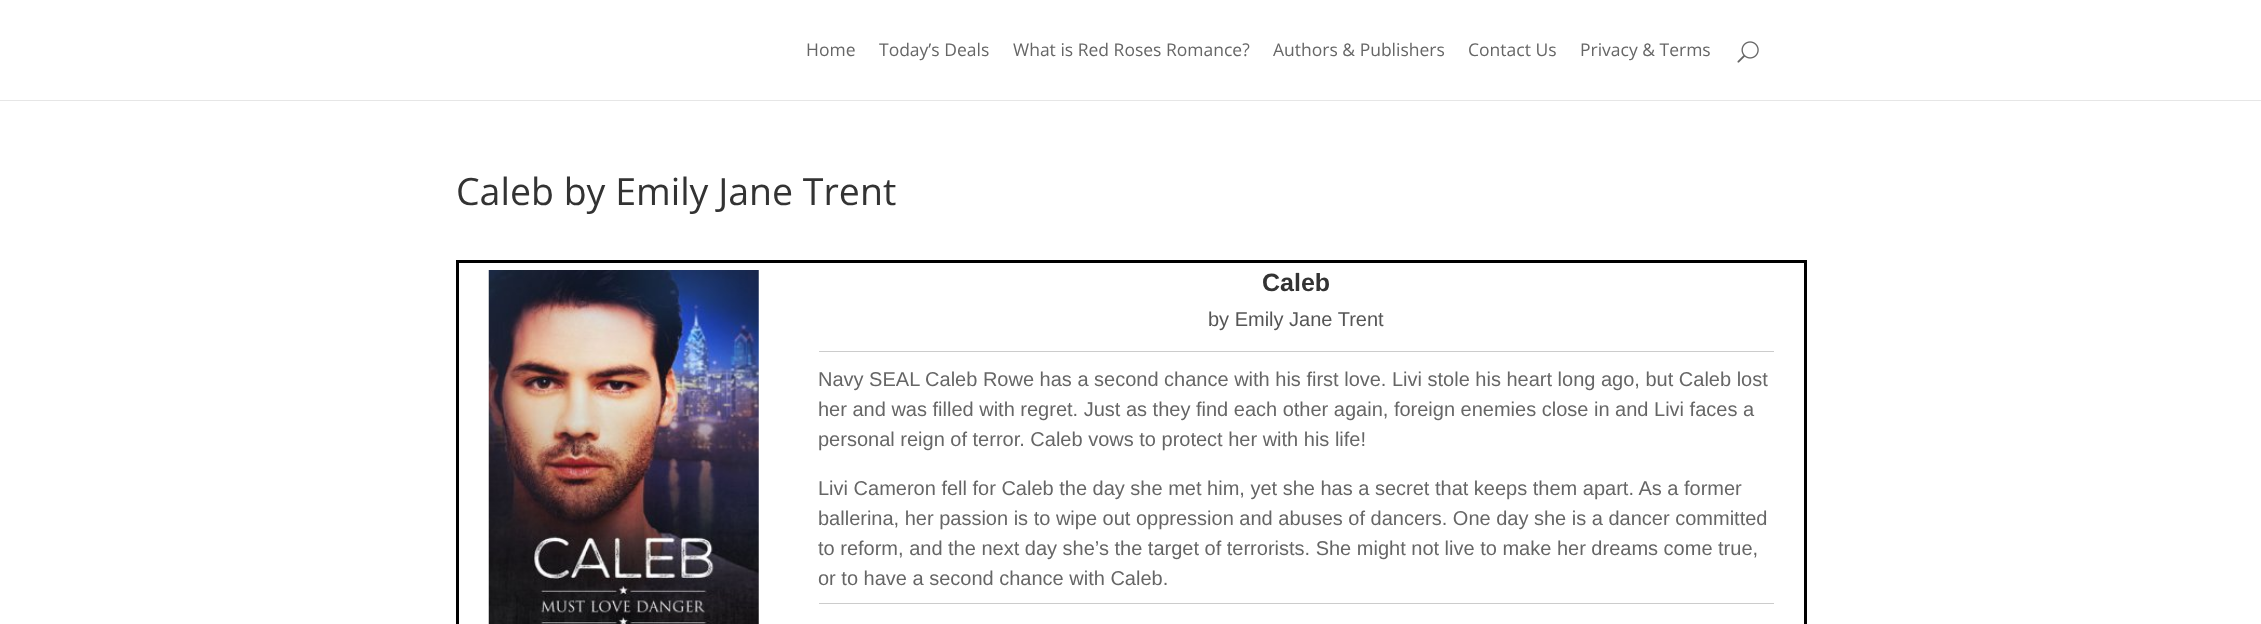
<svg xmlns="http://www.w3.org/2000/svg" xmlns:xlink="http://www.w3.org/1999/xlink" width="2261" height="624" viewBox="0 0 2261 624">
<style>
.cls-1{font:17.5px Open Sans;fill:#666666}
.cls-2{font:37.5px Open Sans;fill:#333333}
.cls-3{font:bold 25px Liberation Sans;fill:#333333}
.cls-4{font:20px Liberation Sans;fill:#555555}
.cls-5{font:20px Liberation Sans;fill:#666666}
</style>
<rect width="100%" height="100%" fill="#ffffff"/>
<rect fill="#e6e6e6" x="0" y="100" width="2261" height="1"/>
<image xlink:href="image0.png" x="1737" y="41" width="22" height="22"/>
<rect fill="#000000" x="456" y="260" width="1350" height="3"/>
<rect fill="#000000" x="1804" y="260" width="3" height="364"/>
<rect fill="#000000" x="456" y="260" width="3" height="364"/>
<image xlink:href="image1.png" x="488" y="270" width="271" height="354"/>
<rect fill="#cccccc" x="819" y="351" width="955" height="1"/>
<rect fill="#cccccc" x="819" y="603" width="955" height="1"/>
<text class="cls-1" x="806" y="56">Home</text>
<text class="cls-1" x="879" y="56">Today’s Deals</text>
<text class="cls-1" x="1013" y="56">What is Red Roses Romance?</text>
<text class="cls-1" x="1273" y="56">Authors &amp; Publishers</text>
<text class="cls-1" x="1468" y="56">Contact Us</text>
<text class="cls-1" x="1580" y="56">Privacy &amp; Terms</text>
<text class="cls-2" x="456" y="205">Caleb by Emily Jane Trent</text>
<text class="cls-3" x="1262" y="291">Caleb</text>
<text class="cls-4" x="1208" y="326">by Emily Jane Trent</text>
<text class="cls-5"><tspan x="818" y="386">Navy SEAL Caleb Rowe has a second chance with his first love. Livi stole his heart long ago, but Caleb lost</tspan><tspan x="818" y="416">her and was filled with regret. Just as they find each other again, foreign enemies close in and Livi faces a</tspan><tspan x="818" y="446">personal reign of terror. Caleb vows to protect her with his life!</tspan></text>
<text class="cls-5"><tspan x="818" y="495">Livi Cameron fell for Caleb the day she met him, yet she has a secret that keeps them apart. As a former</tspan><tspan x="818" y="525">ballerina, her passion is to wipe out oppression and abuses of dancers. One day she is a dancer committed</tspan><tspan x="818" y="555">to reform, and the next day she’s the target of terrorists. She might not live to make her dreams come true,</tspan><tspan x="818" y="585">or to have a second chance with Caleb.</tspan></text>
</svg>
